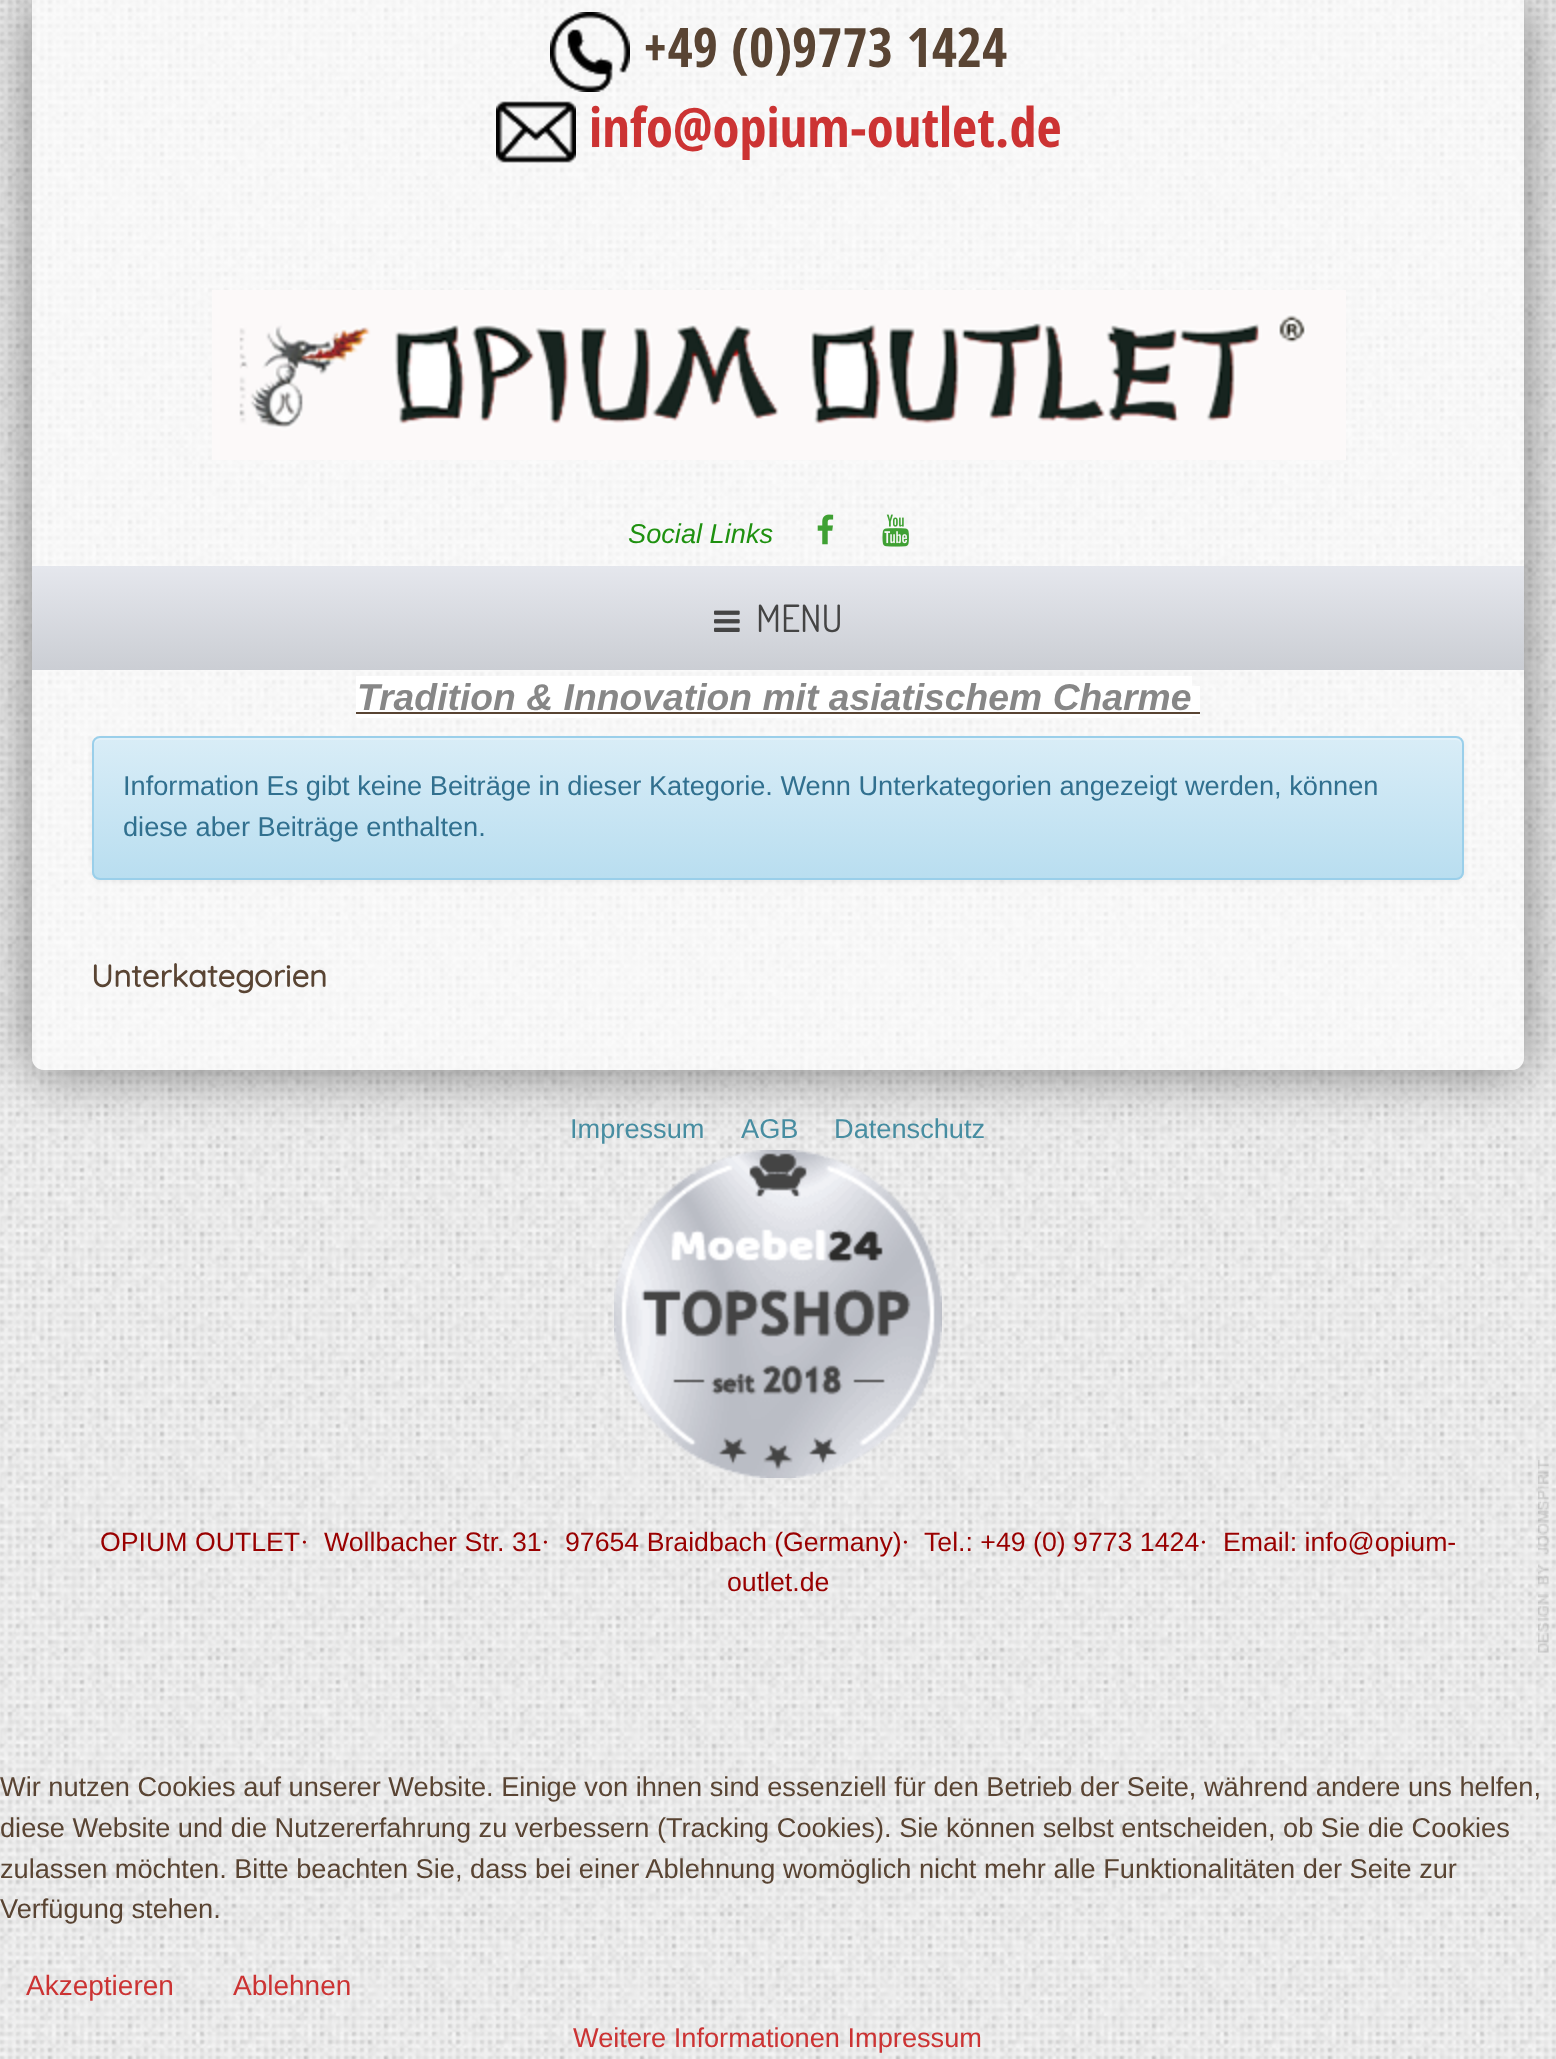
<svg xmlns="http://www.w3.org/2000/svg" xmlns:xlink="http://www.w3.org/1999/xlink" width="1556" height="2059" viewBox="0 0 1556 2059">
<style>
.cls-1{font:bold 54.5px Open Sans Condensed;fill:#594433}
.cls-2{font:bold 54.5px Open Sans Condensed;fill:#cc3333}
.cls-3{font:italic 27.2px Liberation Sans;fill:#1f9110}
.cls-4{font:37.5px Dosis;fill:#444444}
.cls-5{font:italic bold 37.3px Liberation Sans;fill:#878787}
.cls-6{font:27.2px Liberation Sans;fill:#31708f}
.cls-7{font:bold 31.25px Quicksand;fill:#594433}
.cls-8{font:27.2px Liberation Sans;fill:#478da1}
.cls-9{font:26.7px Liberation Sans;fill:#990000}
.cls-10{font:26.7px Liberation Serif;fill:#990000}
.cls-11{font:27.2px Liberation Sans;fill:#594433}
.cls-12{font:28px Liberation Sans;fill:#cc3333}
.cls-13{font:27.2px Liberation Sans;fill:#cc3333}
</style>
<defs>
<clipPath id="clip1"><path d="M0 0H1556V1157H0ZM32 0H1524V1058C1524 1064.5 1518.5 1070 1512 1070H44C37.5 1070 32 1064.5 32 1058Z" clip-rule="evenodd"/></clipPath>
<linearGradient id="g1" gradientUnits="userSpaceOnUse" x1="778" y1="566" x2="778" y2="670"><stop offset="0" stop-color="#e5e7ed"/><stop offset="1" stop-color="#cbced4"/></linearGradient>
<clipPath id="clip2"><rect x="92" y="736" width="1372" height="144" rx="8"/></clipPath>
<linearGradient id="g2" gradientUnits="userSpaceOnUse" x1="778" y1="738" x2="778" y2="878"><stop offset="0" stop-color="#d9edf7"/><stop offset="1" stop-color="#b9def0"/></linearGradient>
</defs>
<rect width="100%" height="100%" fill="#ffffff"/>
<image xlink:href="image0.png" x="0" y="0" width="1556" height="2059"/>
<image xlink:href="image7.png" x="614" y="1150" width="328" height="328"/>
<g clip-path="url(#clip1)">
<rect fill="#000000" fill-opacity="0.46" filter="blur(28px)" x="30" y="-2" width="1496" height="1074" rx="14"/>
</g>
<path fill="#ffffff" fill-opacity="0.65" d="M32 0H1524V1058C1524 1064.5 1518.5 1070 1512 1070H44C37.5 1070 32 1064.5 32 1058Z"/>
<image xlink:href="image1.png" x="550" y="12" width="80" height="80"/>
<image xlink:href="image2.png" x="496" y="101" width="80" height="62"/>
<image xlink:href="image3.png" x="212" y="290" width="1134" height="170"/>
<image xlink:href="image4.png" x="817" y="514" width="17" height="31"/>
<image xlink:href="image5.png" x="882" y="514" width="27" height="33"/>
<rect fill="url(#g1)" x="32" y="566" width="1492" height="104"/>
<image xlink:href="image6.png" x="714" y="610" width="26" height="22"/>
<rect fill="#ffffff" x="356" y="676" width="836" height="42"/>
<rect fill="#ffffff" x="1192" y="686" width="8" height="30"/>
<rect fill="#594433" x="356" y="712" width="844" height="2"/>
<rect fill="#000000" fill-opacity="0.05" filter="blur(2px)" x="92" y="738" width="1372" height="144" rx="8"/>
<g clip-path="url(#clip2)">
<rect fill="url(#g2)" x="92" y="738" width="1372" height="140"/>
</g>
<path fill="#e2f1f9" d="M100 740H1456C1459 740 1462 743 1462 746V744C1462 741 1459 738 1456 738H100C97 738 94 741 94 744V746C94 743 97 740 100 740Z"/>
<rect fill="none" stroke="#9acfea" stroke-width="2" x="93" y="737" width="1370" height="142" rx="7"/>
<image xlink:href="image8.png" x="1538" y="1460" width="12" height="193"/>
<text class="cls-1" x="643" y="67">+49 (0)9773 1424</text>
<text class="cls-2" x="589" y="147">info@opium-outlet.de</text>
<text class="cls-3" x="628" y="543">Social Links</text>
<text class="cls-4" x="756" y="632">MENU</text>
<text class="cls-5" x="357" y="710">Tradition &amp; Innovation mit asiatischem Charme</text>
<text class="cls-6"><tspan x="123" y="795">Information Es gibt keine Beiträge in dieser Kategorie. Wenn Unterkategorien angezeigt werden, können</tspan><tspan x="123" y="836">diese aber Beiträge enthalten.</tspan></text>
<text class="cls-7" x="91" y="987">Unterkategorien</text>
<text class="cls-8" x="570" y="1138">Impressum</text>
<text class="cls-8" x="741" y="1138">AGB</text>
<text class="cls-8" x="834" y="1138">Datenschutz</text>
<text class="cls-9" x="100" y="1551">OPIUM OUTLET</text>
<text class="cls-10" x="300" y="1551">·</text>
<text class="cls-9" x="324" y="1551">Wollbacher Str. 31</text>
<text class="cls-10" x="541" y="1551">·</text>
<text class="cls-9" x="565" y="1551">97654 Braidbach (Germany)</text>
<text class="cls-10" x="901" y="1551">·</text>
<text class="cls-9" x="924" y="1551">Tel.: +49 (0) 9773 1424</text>
<text class="cls-10" x="1199" y="1551">·</text>
<text class="cls-9" x="1223" y="1551">Email: info@opium-</text>
<text class="cls-9" x="727" y="1591">outlet.de</text>
<text class="cls-11"><tspan x="0" y="1796">Wir nutzen Cookies auf unserer Website. Einige von ihnen sind essenziell für den Betrieb der Seite, während andere uns helfen,</tspan><tspan x="0" y="1837">diese Website und die Nutzererfahrung zu verbessern (Tracking Cookies). Sie können selbst entscheiden, ob Sie die Cookies</tspan><tspan x="0" y="1878">zulassen möchten. Bitte beachten Sie, dass bei einer Ablehnung womöglich nicht mehr alle Funktionalitäten der Seite zur</tspan><tspan x="0" y="1918">Verfügung stehen.</tspan></text>
<text class="cls-12" x="26" y="1995">Akzeptieren</text>
<text class="cls-12" x="233" y="1995">Ablehnen</text>
<text class="cls-13" x="573" y="2047">Weitere Informationen Impressum</text>
</svg>
